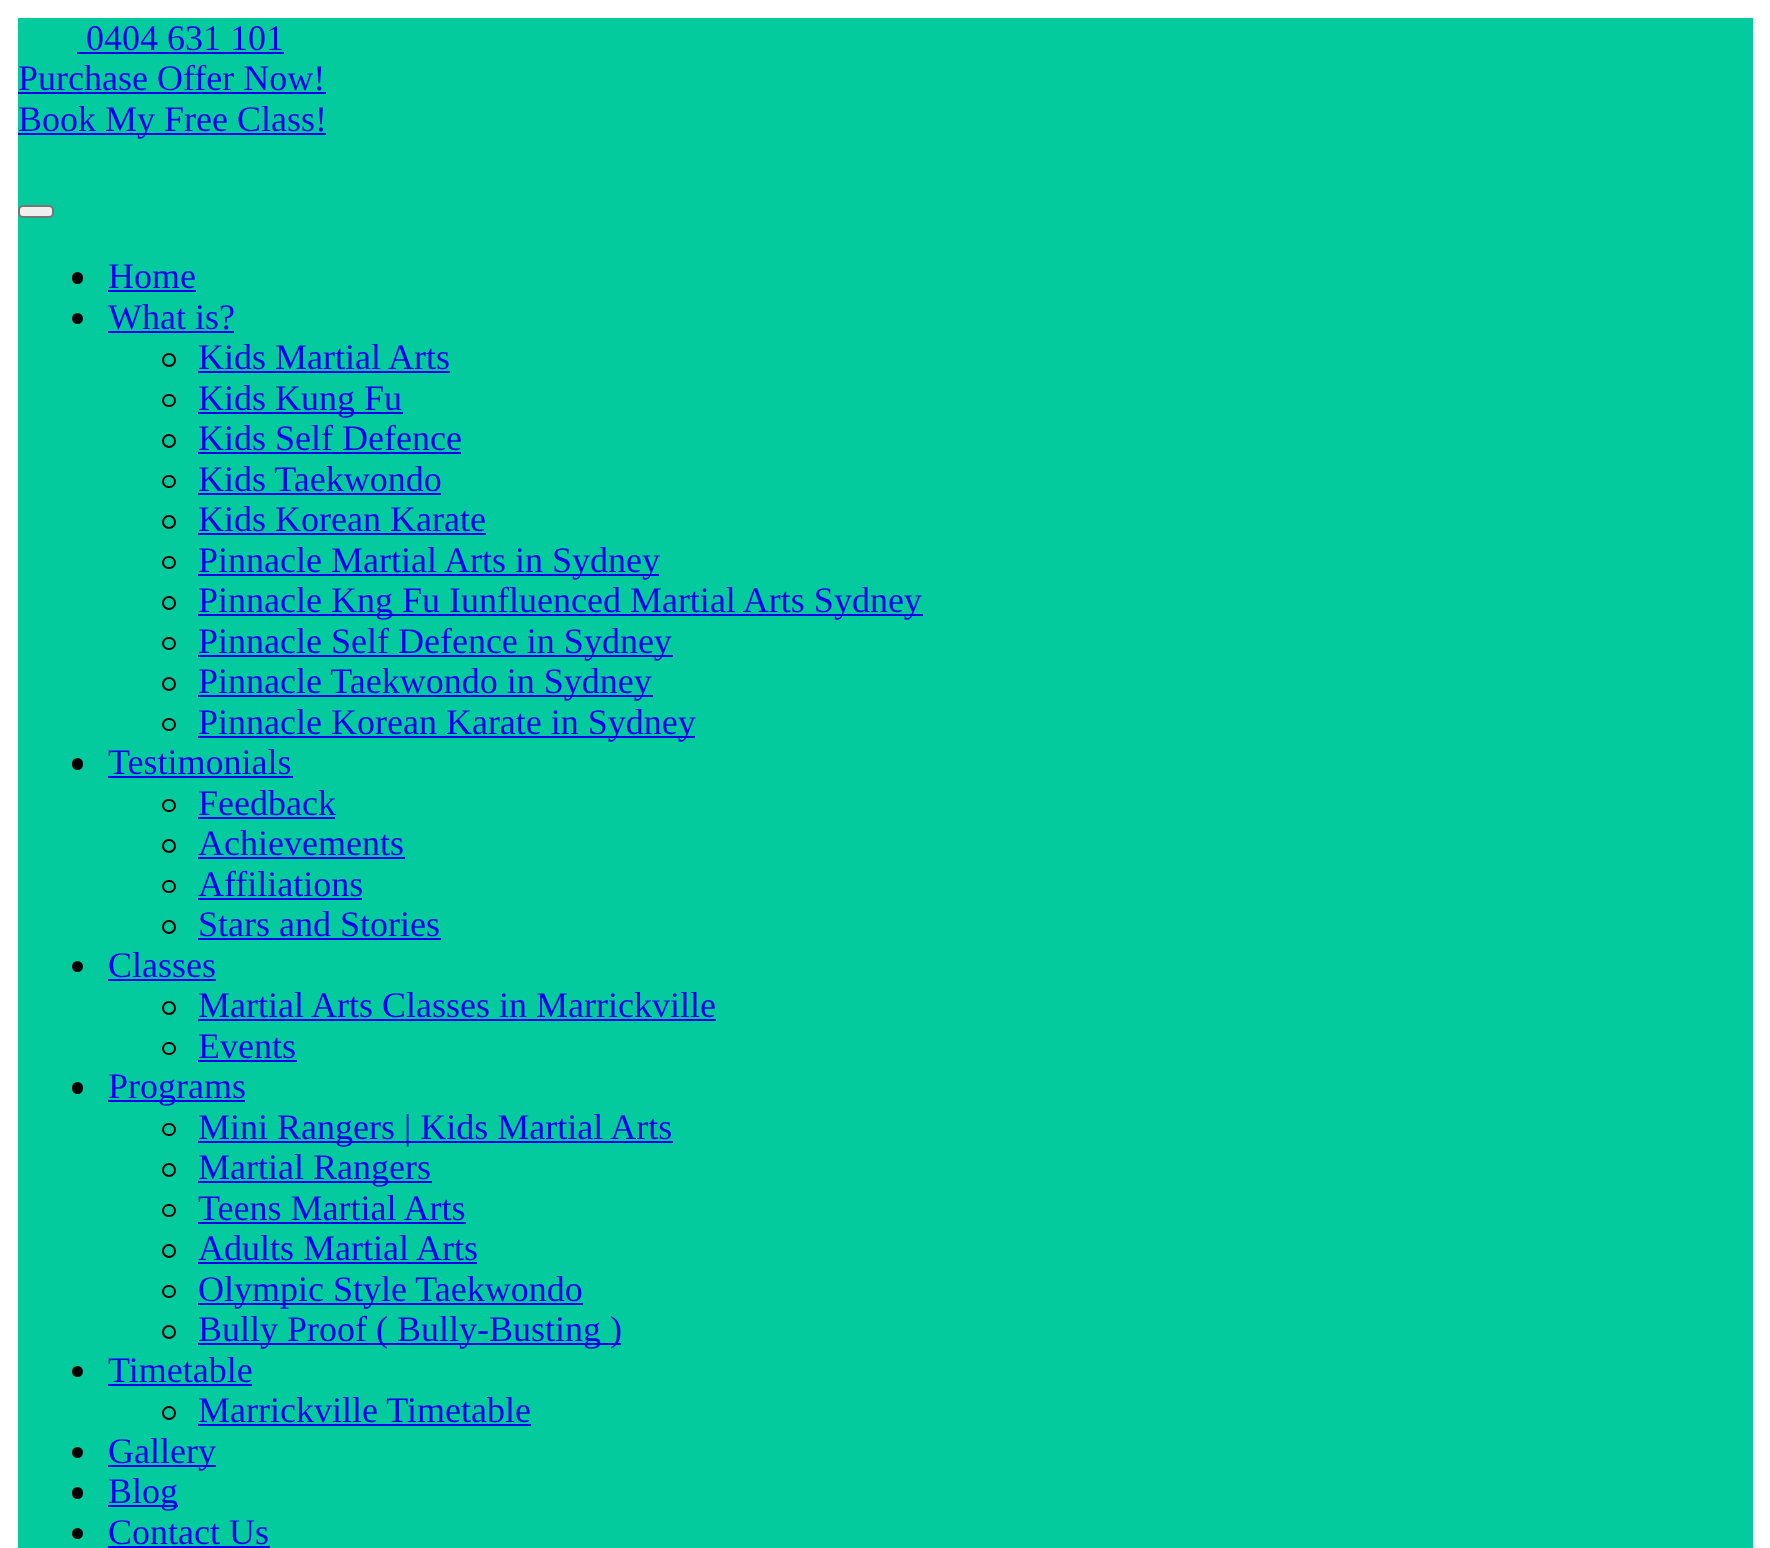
<svg xmlns="http://www.w3.org/2000/svg" xmlns:xlink="http://www.w3.org/1999/xlink" width="1770" height="1548" viewBox="0 0 1770 1548">
<style>
.cls-1{font:36px Liberation Serif;fill:#0000ee}
</style>
<rect width="100%" height="100%" fill="#ffffff"/>
<rect fill="#03cb9d" x="18" y="18" width="1735" height="1530"/>
<rect fill="#0000ee" x="77" y="52" width="207" height="2"/>
<rect fill="#0000ee" x="18" y="92" width="308" height="2"/>
<rect fill="#0000ee" x="18" y="133" width="308" height="2"/>
<rect fill="#efefef" stroke="#767676" stroke-width="2" x="19" y="206" width="34" height="11" rx="4"/>
<rect fill="#000000" x="72" y="272" width="11" height="12" rx="5.5"/>
<rect fill="#0000ee" x="108" y="290" width="88" height="2"/>
<circle fill="#000000" cx="77.5" cy="318.5" r="5.5"/>
<rect fill="#0000ee" x="108" y="331" width="126" height="2"/>
<circle fill="none" stroke="#000000" stroke-width="2" cx="169" cy="360" r="6"/>
<rect fill="#0000ee" x="198" y="371" width="252" height="2"/>
<rect fill="none" stroke="#000000" stroke-width="2" x="163" y="395" width="12" height="11" rx="5.5"/>
<rect fill="#0000ee" x="198" y="412" width="205" height="2"/>
<circle fill="none" stroke="#000000" stroke-width="2" cx="169" cy="441" r="6"/>
<rect fill="#0000ee" x="198" y="452" width="263" height="2"/>
<rect fill="none" stroke="#000000" stroke-width="2" x="163" y="476" width="12" height="11" rx="5.5"/>
<rect fill="#0000ee" x="198" y="493" width="243" height="2"/>
<circle fill="none" stroke="#000000" stroke-width="2" cx="169" cy="522" r="6"/>
<rect fill="#0000ee" x="198" y="533" width="288" height="2"/>
<rect fill="none" stroke="#000000" stroke-width="2" x="163" y="557" width="12" height="11" rx="5.5"/>
<rect fill="#0000ee" x="198" y="574" width="461" height="2"/>
<circle fill="none" stroke="#000000" stroke-width="2" cx="169" cy="603" r="6"/>
<rect fill="#0000ee" x="198" y="614" width="725" height="2"/>
<rect fill="none" stroke="#000000" stroke-width="2" x="163" y="638" width="12" height="11" rx="5.5"/>
<rect fill="#0000ee" x="198" y="655" width="475" height="2"/>
<circle fill="none" stroke="#000000" stroke-width="2" cx="169" cy="684" r="6"/>
<rect fill="#0000ee" x="198" y="695" width="455" height="2"/>
<rect fill="none" stroke="#000000" stroke-width="2" x="163" y="719" width="12" height="11" rx="5.5"/>
<rect fill="#0000ee" x="198" y="736" width="497" height="2"/>
<rect fill="#000000" x="72" y="758" width="11" height="12" rx="5.5"/>
<rect fill="#0000ee" x="108" y="776" width="185" height="2"/>
<rect fill="none" stroke="#000000" stroke-width="2" x="163" y="800" width="12" height="11" rx="5.5"/>
<rect fill="#0000ee" x="198" y="817" width="137" height="2"/>
<circle fill="none" stroke="#000000" stroke-width="2" cx="169" cy="846" r="6"/>
<rect fill="#0000ee" x="198" y="857" width="207" height="2"/>
<rect fill="none" stroke="#000000" stroke-width="2" x="163" y="881" width="12" height="11" rx="5.5"/>
<rect fill="#0000ee" x="198" y="898" width="164" height="2"/>
<circle fill="none" stroke="#000000" stroke-width="2" cx="169" cy="927" r="6"/>
<rect fill="#0000ee" x="198" y="938" width="243" height="2"/>
<circle fill="#000000" cx="77.5" cy="966.5" r="5.5"/>
<rect fill="#0000ee" x="108" y="979" width="108" height="2"/>
<circle fill="none" stroke="#000000" stroke-width="2" cx="169" cy="1008" r="6"/>
<rect fill="#0000ee" x="198" y="1019" width="518" height="2"/>
<rect fill="none" stroke="#000000" stroke-width="2" x="163" y="1043" width="12" height="11" rx="5.5"/>
<rect fill="#0000ee" x="198" y="1060" width="99" height="2"/>
<rect fill="#000000" x="72" y="1082" width="11" height="12" rx="5.5"/>
<rect fill="#0000ee" x="108" y="1100" width="137" height="2"/>
<rect fill="none" stroke="#000000" stroke-width="2" x="163" y="1124" width="12" height="11" rx="5.5"/>
<rect fill="#0000ee" x="198" y="1141" width="475" height="2"/>
<circle fill="none" stroke="#000000" stroke-width="2" cx="169" cy="1170" r="6"/>
<rect fill="#0000ee" x="198" y="1181" width="234" height="2"/>
<rect fill="none" stroke="#000000" stroke-width="2" x="163" y="1205" width="12" height="11" rx="5.5"/>
<rect fill="#0000ee" x="198" y="1222" width="268" height="2"/>
<circle fill="none" stroke="#000000" stroke-width="2" cx="169" cy="1251" r="6"/>
<rect fill="#0000ee" x="198" y="1262" width="279" height="2"/>
<rect fill="none" stroke="#000000" stroke-width="2" x="163" y="1286" width="12" height="11" rx="5.5"/>
<rect fill="#0000ee" x="198" y="1303" width="385" height="2"/>
<circle fill="none" stroke="#000000" stroke-width="2" cx="169" cy="1332" r="6"/>
<rect fill="#0000ee" x="198" y="1343" width="423" height="2"/>
<circle fill="#000000" cx="77.5" cy="1371.5" r="5.5"/>
<rect fill="#0000ee" x="108" y="1384" width="144" height="2"/>
<circle fill="none" stroke="#000000" stroke-width="2" cx="169" cy="1413" r="6"/>
<rect fill="#0000ee" x="198" y="1424" width="333" height="2"/>
<circle fill="#000000" cx="77.5" cy="1452.5" r="5.5"/>
<rect fill="#0000ee" x="108" y="1465" width="108" height="2"/>
<rect fill="#000000" x="72" y="1487" width="11" height="12" rx="5.5"/>
<rect fill="#0000ee" x="108" y="1505" width="70" height="2"/>
<circle fill="#000000" cx="77.5" cy="1533.5" r="5.5"/>
<rect fill="#0000ee" x="108" y="1546" width="162" height="2"/>
<text class="cls-1" x="86" y="50">0404 631 101</text>
<text class="cls-1"><tspan x="18" y="90">Purchase Offer Now!</tspan><tspan x="18" y="131">Book My Free Class!</tspan></text>
<text class="cls-1"><tspan x="108" y="288">Home</tspan><tspan x="108" y="329">What is?</tspan></text>
<text class="cls-1"><tspan x="198" y="369">Kids Martial Arts</tspan><tspan x="198" y="410">Kids Kung Fu</tspan><tspan x="198" y="450">Kids Self Defence</tspan><tspan x="198" y="491">Kids Taekwondo</tspan><tspan x="198" y="531">Kids Korean Karate</tspan><tspan x="198" y="572">Pinnacle Martial Arts in Sydney</tspan><tspan x="198" y="612">Pinnacle Kng Fu Iunfluenced Martial Arts Sydney</tspan><tspan x="198" y="653">Pinnacle Self Defence in Sydney</tspan><tspan x="198" y="693">Pinnacle Taekwondo in Sydney</tspan><tspan x="198" y="734">Pinnacle Korean Karate in Sydney</tspan></text>
<text class="cls-1" x="108" y="774">Testimonials</text>
<text class="cls-1"><tspan x="198" y="815">Feedback</tspan><tspan x="198" y="855">Achievements</tspan><tspan x="198" y="896">Affiliations</tspan><tspan x="198" y="936">Stars and Stories</tspan></text>
<text class="cls-1" x="108" y="977">Classes</text>
<text class="cls-1"><tspan x="198" y="1017">Martial Arts Classes in Marrickville</tspan><tspan x="198" y="1058">Events</tspan></text>
<text class="cls-1" x="108" y="1098">Programs</text>
<text class="cls-1"><tspan x="198" y="1139">Mini Rangers | Kids Martial Arts</tspan><tspan x="198" y="1179">Martial Rangers</tspan><tspan x="198" y="1220">Teens Martial Arts</tspan><tspan x="198" y="1260">Adults Martial Arts</tspan><tspan x="198" y="1301">Olympic Style Taekwondo</tspan><tspan x="198" y="1341">Bully Proof ( Bully-Busting )</tspan></text>
<text class="cls-1" x="108" y="1382">Timetable</text>
<text class="cls-1" x="198" y="1422">Marrickville Timetable</text>
<text class="cls-1"><tspan x="108" y="1463">Gallery</tspan><tspan x="108" y="1503">Blog</tspan><tspan x="108" y="1544">Contact Us</tspan></text>
</svg>
